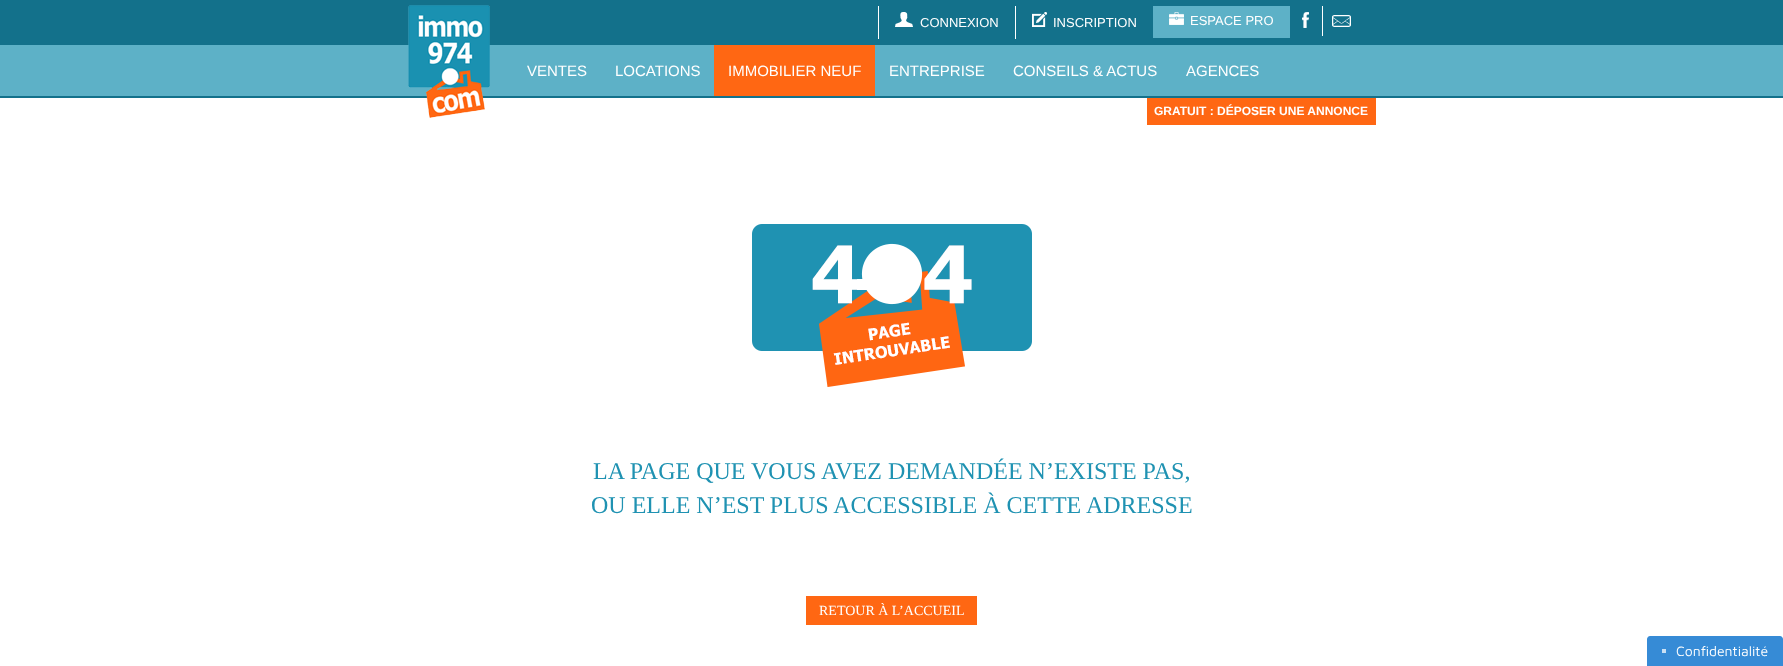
<svg xmlns="http://www.w3.org/2000/svg" xmlns:xlink="http://www.w3.org/1999/xlink" width="1783" height="666" viewBox="0 0 1783 666">
<style>
.cls-1{font:13px Liberation Sans;fill:#ffffff}
.cls-2{font:15px Liberation Sans;fill:#ffffff}
.cls-3{font:bold 12px Liberation Sans;fill:#ffffff}
.cls-4{font:24px Liberation Serif;fill:#1f92b2}
.cls-5{font:14px Liberation Serif;fill:#ffffff}
.cls-6{font:14px Maven Pro;fill:#ffffff}
</style>
<rect width="100%" height="100%" fill="#ffffff"/>
<rect fill="#13718b" x="0" y="0" width="1783" height="45"/>
<rect fill="#ffffff" x="878" y="6" width="1" height="33"/>
<image xlink:href="image0.png" x="895" y="12" width="18" height="15"/>
<rect fill="#ffffff" x="1015" y="6" width="1" height="33"/>
<image xlink:href="image1.png" x="1032" y="12" width="15" height="15"/>
<rect fill="#5db1c7" x="1153" y="6" width="137" height="32"/>
<image xlink:href="image2.png" x="1169" y="12" width="15" height="13"/>
<image xlink:href="image3.png" x="1302" y="12" width="7" height="16"/>
<rect fill="#ffffff" x="1322" y="6" width="1" height="30"/>
<image xlink:href="image4.png" x="1332" y="15" width="19" height="12"/>
<rect fill="#5db1c7" x="0" y="45" width="1783" height="51"/>
<rect fill="#13718b" x="0" y="96" width="1783" height="2"/>
<image xlink:href="image5.png" x="408" y="5" width="82" height="113"/>
<rect fill="#ff6713" x="714" y="45" width="161" height="51"/>
<rect fill="#ff6713" x="1147" y="98" width="229" height="27"/>
<image xlink:href="image6.png" x="752" y="224" width="280" height="163"/>
<rect fill="#ff6713" x="806" y="596" width="171" height="29"/>
<path fill="#368bd6" d="M1650 636H1780C1781.5 636 1783 637.5 1783 639V666H1647V639C1647 637.5 1648.5 636 1650 636Z"/>
<rect fill="#c9e0f4" x="1662" y="649" width="4" height="4"/>
<text class="cls-1" x="920" y="27">CONNEXION</text>
<text class="cls-1" x="1053" y="27">INSCRIPTION</text>
<text class="cls-1" x="1190" y="25">ESPACE PRO</text>
<text class="cls-2" x="527" y="76">VENTES</text>
<text class="cls-2" x="615" y="76">LOCATIONS</text>
<text class="cls-2" x="728" y="76">IMMOBILIER NEUF</text>
<text class="cls-2" x="889" y="76">ENTREPRISE</text>
<text class="cls-2" x="1013" y="76">CONSEILS &amp; ACTUS</text>
<text class="cls-2" x="1186" y="76">AGENCES</text>
<text class="cls-3" x="1154" y="115">GRATUIT : DÉPOSER UNE ANNONCE</text>
<text class="cls-4" x="593" y="479">LA PAGE QUE VOUS AVEZ DEMANDÉE N’EXISTE PAS,</text>
<text class="cls-4" x="591" y="513">OU ELLE N’EST PLUS ACCESSIBLE À CETTE ADRESSE</text>
<text class="cls-5" x="819" y="615">RETOUR À L’ACCUEIL</text>
<text class="cls-6" x="1676" y="656">Confidentialité</text>
</svg>
